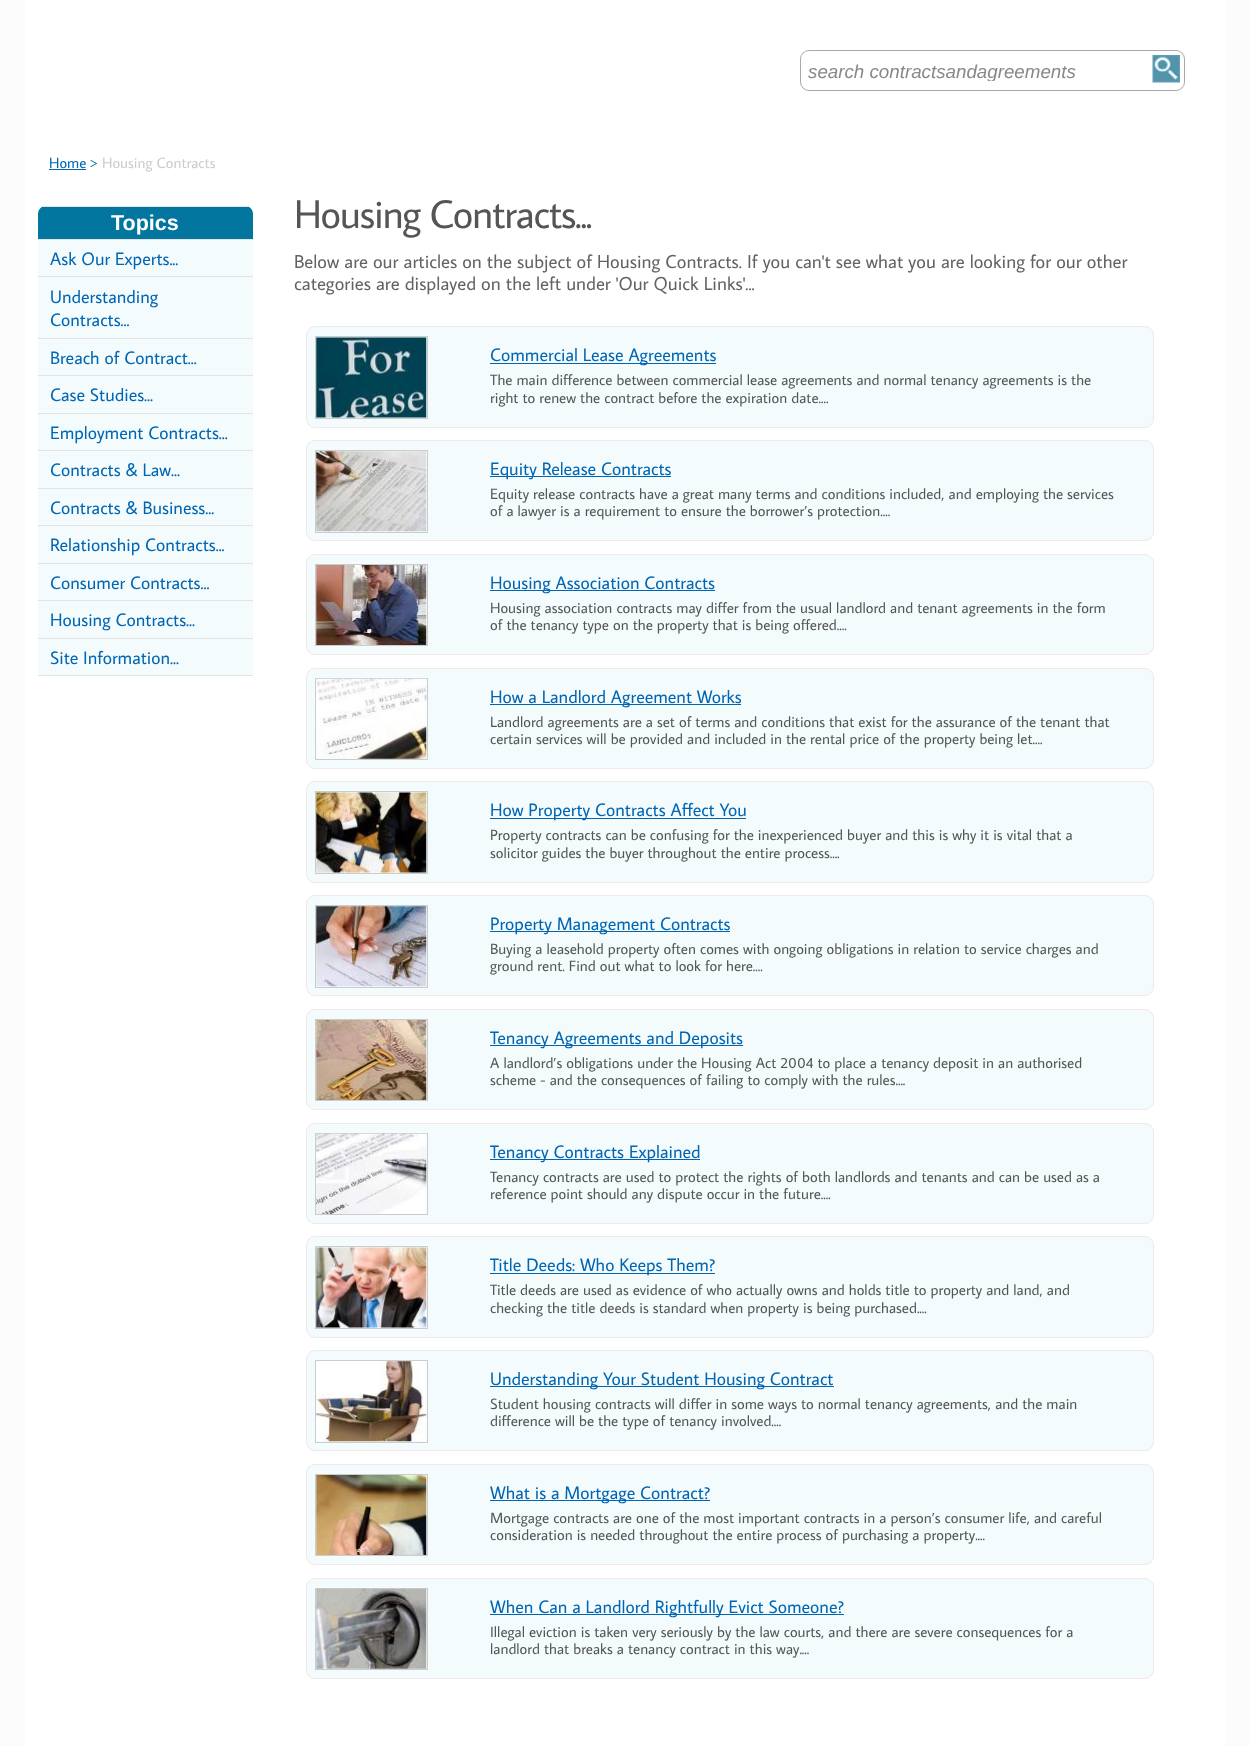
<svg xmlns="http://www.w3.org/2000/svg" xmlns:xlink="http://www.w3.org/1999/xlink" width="1250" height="1746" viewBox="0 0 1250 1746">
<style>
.cls-1{font:italic 18.75px Liberation Sans;fill:#888888}
.cls-2{font:15px Average Sans;fill:#0066b3}
.cls-3{font:15px Average Sans;fill:#0376a0}
.cls-4{font:15px Average Sans;fill:#cccccc}
.cls-5{font:bold 21.5px Liberation Sans;fill:#ffffff}
.cls-6{font:18px Average Sans;fill:#0066b3}
.cls-7{font:40px Average Sans;letter-spacing:-1.25px;fill:#555555}
.cls-8{font:18.75px Average Sans;fill:#636363}
.cls-9{font:15px Average Sans;fill:#555555}
</style>
<defs>
<clipPath id="clip1"><rect x="808" y="60" width="337" height="21"/></clipPath>
</defs>
<rect width="100%" height="100%" fill="#fcfcfc"/>
<rect fill="#ffffff" x="25" y="0" width="1200" height="1746"/>
<rect fill="none" stroke="#aaaaaa" x="800.5" y="50.5" width="384" height="40" rx="8.5"/>
<image xlink:href="image0.png" x="1152" y="55" width="28" height="28"/>
<rect fill="#0066b3" x="49" y="169" width="37" height="1"/>
<path fill="#0376a0" d="M46 206H245C249.5 206 253 209.5 253 214V240H38V214C38 209.5 41.5 206 46 206Z"/>
<rect fill="#e3e3e3" x="41" y="206" width="208" height="1"/>
<rect fill="#e3e3e3" x="38" y="239" width="215" height="1"/>
<rect fill="#f3fbfd" x="38" y="240" width="215" height="98"/>
<rect fill="#e3e3e3" x="38" y="276" width="215" height="1"/>
<rect fill="#e3e3e3" x="38" y="338" width="215" height="1"/>
<rect fill="#f3fbfd" x="38" y="339" width="215" height="36"/>
<rect fill="#e3e3e3" x="38" y="375" width="215" height="1"/>
<rect fill="#f3fbfd" x="38" y="376" width="215" height="37"/>
<rect fill="#e3e3e3" x="38" y="413" width="215" height="1"/>
<rect fill="#f3fbfd" x="38" y="414" width="215" height="36"/>
<rect fill="#e3e3e3" x="38" y="450" width="215" height="1"/>
<rect fill="#f3fbfd" x="38" y="451" width="215" height="37"/>
<rect fill="#e3e3e3" x="38" y="488" width="215" height="1"/>
<rect fill="#f3fbfd" x="38" y="489" width="215" height="36"/>
<rect fill="#e3e3e3" x="38" y="525" width="215" height="1"/>
<rect fill="#f3fbfd" x="38" y="526" width="215" height="37"/>
<rect fill="#e3e3e3" x="38" y="563" width="215" height="1"/>
<rect fill="#f3fbfd" x="38" y="564" width="215" height="36"/>
<rect fill="#e3e3e3" x="38" y="600" width="215" height="1"/>
<rect fill="#f3fbfd" x="38" y="601" width="215" height="37"/>
<rect fill="#e3e3e3" x="38" y="638" width="215" height="1"/>
<rect fill="#f3fbfd" x="38" y="639" width="215" height="36"/>
<rect fill="#e3e3e3" x="38" y="675" width="215" height="1"/>
<rect fill="#f3fbfd" stroke="#f1e8eb" x="306.5" y="326.5" width="847" height="101" rx="8.5"/>
<rect fill="none" stroke="#cccccc" x="315.5" y="336.5" width="112" height="82"/>
<image xlink:href="image1.png" x="316" y="337" width="111" height="81"/>
<rect fill="#0066b3" x="490" y="363" width="226" height="1"/>
<rect fill="#f3fbfd" stroke="#f1e8eb" x="306.5" y="440.5" width="847" height="100" rx="8.5"/>
<rect fill="none" stroke="#cccccc" x="315.5" y="450.5" width="112" height="82"/>
<image xlink:href="image2.png" x="316" y="451" width="111" height="81"/>
<rect fill="#0066b3" x="490" y="476" width="181" height="1"/>
<rect fill="#f3fbfd" stroke="#f1e8eb" x="306.5" y="554.5" width="847" height="100" rx="8.5"/>
<rect fill="none" stroke="#cccccc" x="315.5" y="564.5" width="112" height="81"/>
<image xlink:href="image3.png" x="316" y="565" width="111" height="80"/>
<rect fill="#0066b3" x="490" y="590" width="225" height="1"/>
<rect fill="#f3fbfd" stroke="#f1e8eb" x="306.5" y="668.5" width="847" height="100" rx="8.5"/>
<rect fill="none" stroke="#cccccc" x="315.5" y="678.5" width="112" height="81"/>
<image xlink:href="image4.png" x="316" y="678" width="111" height="81"/>
<rect fill="#0066b3" x="490" y="704" width="251" height="1"/>
<rect fill="#f3fbfd" stroke="#f1e8eb" x="306.5" y="781.5" width="847" height="101" rx="8.5"/>
<rect fill="none" stroke="#cccccc" x="315.5" y="791.5" width="112" height="82"/>
<image xlink:href="image5.png" x="316" y="792" width="111" height="81"/>
<rect fill="#0066b3" x="490" y="818" width="256" height="1"/>
<rect fill="#f3fbfd" stroke="#f1e8eb" x="306.5" y="895.5" width="847" height="100" rx="8.5"/>
<rect fill="none" stroke="#cccccc" x="315.5" y="905.5" width="112" height="82"/>
<image xlink:href="image6.png" x="316" y="906" width="111" height="81"/>
<rect fill="#0066b3" x="490" y="931" width="240" height="1"/>
<rect fill="#f3fbfd" stroke="#f1e8eb" x="306.5" y="1009.5" width="847" height="100" rx="8.5"/>
<rect fill="none" stroke="#cccccc" x="315.5" y="1019.5" width="112" height="81"/>
<image xlink:href="image7.png" x="316" y="1020" width="111" height="80"/>
<rect fill="#0066b3" x="490" y="1045" width="253" height="1"/>
<rect fill="#f3fbfd" stroke="#f1e8eb" x="306.5" y="1123.5" width="847" height="100" rx="8.5"/>
<rect fill="none" stroke="#cccccc" x="315.5" y="1133.5" width="112" height="81"/>
<image xlink:href="image8.png" x="316" y="1133" width="111" height="81"/>
<rect fill="#0066b3" x="490" y="1159" width="210" height="1"/>
<rect fill="#f3fbfd" stroke="#f1e8eb" x="306.5" y="1236.5" width="847" height="101" rx="8.5"/>
<rect fill="none" stroke="#cccccc" x="315.5" y="1246.5" width="112" height="82"/>
<image xlink:href="image9.png" x="316" y="1247" width="111" height="81"/>
<rect fill="#0066b3" x="490" y="1273" width="225" height="1"/>
<rect fill="#f3fbfd" stroke="#f1e8eb" x="306.5" y="1350.5" width="847" height="100" rx="8.5"/>
<rect fill="none" stroke="#cccccc" x="315.5" y="1360.5" width="112" height="82"/>
<image xlink:href="image10.png" x="316" y="1361" width="111" height="81"/>
<rect fill="#0066b3" x="490" y="1386" width="344" height="1"/>
<rect fill="#f3fbfd" stroke="#f1e8eb" x="306.5" y="1464.5" width="847" height="100" rx="8.5"/>
<rect fill="none" stroke="#cccccc" x="315.5" y="1474.5" width="112" height="81"/>
<image xlink:href="image11.png" x="316" y="1475" width="111" height="80"/>
<rect fill="#0066b3" x="490" y="1500" width="220" height="1"/>
<rect fill="#f3fbfd" stroke="#f1e8eb" x="306.5" y="1578.5" width="847" height="100" rx="8.5"/>
<rect fill="none" stroke="#cccccc" x="315.5" y="1588.5" width="112" height="81"/>
<image xlink:href="image12.png" x="316" y="1588" width="111" height="81"/>
<rect fill="#0066b3" x="490" y="1614" width="354" height="1"/>
<g clip-path="url(#clip1)">
<text class="cls-1" x="808" y="78">search contractsandagreements</text>
</g>
<text class="cls-2" x="49" y="168">Home</text>
<text class="cls-3" x="90" y="168">&gt;</text>
<text class="cls-4" x="102" y="168">Housing Contracts</text>
<text class="cls-5" x="111" y="230">Topics</text>
<text class="cls-6" x="50" y="265">Ask Our Experts...</text>
<text class="cls-6"><tspan x="50" y="303">Understanding</tspan><tspan x="50" y="326">Contracts...</tspan></text>
<text class="cls-6" x="50" y="364">Breach of Contract...</text>
<text class="cls-6" x="50" y="401">Case Studies...</text>
<text class="cls-6" x="50" y="439">Employment Contracts...</text>
<text class="cls-6" x="50" y="476">Contracts &amp; Law...</text>
<text class="cls-6" x="50" y="514">Contracts &amp; Business...</text>
<text class="cls-6" x="50" y="551">Relationship Contracts...</text>
<text class="cls-6" x="50" y="589">Consumer Contracts...</text>
<text class="cls-6" x="50" y="626">Housing Contracts...</text>
<text class="cls-6" x="50" y="664">Site Information...</text>
<text class="cls-7" x="294" y="228">Housing Contracts...</text>
<text class="cls-8"><tspan x="294" y="268">Below are our articles on the subject of Housing Contracts. If you can't see what you are looking for our other</tspan><tspan x="294" y="290">categories are displayed on the left under 'Our Quick Links'...</tspan></text>
<text class="cls-6" x="490" y="361">Commercial Lease Agreements</text>
<text class="cls-9"><tspan x="490" y="385">The main difference between commercial lease agreements and normal tenancy agreements is the</tspan><tspan x="490" y="403">right to renew the contract before the expiration date....</tspan></text>
<text class="cls-6" x="490" y="475">Equity Release Contracts</text>
<text class="cls-9"><tspan x="490" y="499">Equity release contracts have a great many terms and conditions included, and employing the services</tspan><tspan x="490" y="516">of a lawyer is a requirement to ensure the borrower’s protection....</tspan></text>
<text class="cls-6" x="490" y="589">Housing Association Contracts</text>
<text class="cls-9"><tspan x="490" y="613">Housing association contracts may differ from the usual landlord and tenant agreements in the form</tspan><tspan x="490" y="630">of the tenancy type on the property that is being offered....</tspan></text>
<text class="cls-6" x="490" y="703">How a Landlord Agreement Works</text>
<text class="cls-9"><tspan x="490" y="727">Landlord agreements are a set of terms and conditions that exist for the assurance of the tenant that</tspan><tspan x="490" y="744">certain services will be provided and included in the rental price of the property being let....</tspan></text>
<text class="cls-6" x="490" y="816">How Property Contracts Affect You</text>
<text class="cls-9"><tspan x="490" y="840">Property contracts can be confusing for the inexperienced buyer and this is why it is vital that a</tspan><tspan x="490" y="858">solicitor guides the buyer throughout the entire process....</tspan></text>
<text class="cls-6" x="490" y="930">Property Management Contracts</text>
<text class="cls-9"><tspan x="490" y="954">Buying a leasehold property often comes with ongoing obligations in relation to service charges and</tspan><tspan x="490" y="971">ground rent. Find out what to look for here....</tspan></text>
<text class="cls-6" x="490" y="1044">Tenancy Agreements and Deposits</text>
<text class="cls-9"><tspan x="490" y="1068">A landlord’s obligations under the Housing Act 2004 to place a tenancy deposit in an authorised</tspan><tspan x="490" y="1085">scheme - and the consequences of failing to comply with the rules....</tspan></text>
<text class="cls-6" x="490" y="1158">Tenancy Contracts Explained</text>
<text class="cls-9"><tspan x="490" y="1182">Tenancy contracts are used to protect the rights of both landlords and tenants and can be used as a</tspan><tspan x="490" y="1199">reference point should any dispute occur in the future....</tspan></text>
<text class="cls-6" x="490" y="1271">Title Deeds: Who Keeps Them?</text>
<text class="cls-9"><tspan x="490" y="1295">Title deeds are used as evidence of who actually owns and holds title to property and land, and</tspan><tspan x="490" y="1313">checking the title deeds is standard when property is being purchased....</tspan></text>
<text class="cls-6" x="490" y="1385">Understanding Your Student Housing Contract</text>
<text class="cls-9"><tspan x="490" y="1409">Student housing contracts will differ in some ways to normal tenancy agreements, and the main</tspan><tspan x="490" y="1426">difference will be the type of tenancy involved....</tspan></text>
<text class="cls-6" x="490" y="1499">What is a Mortgage Contract?</text>
<text class="cls-9"><tspan x="490" y="1523">Mortgage contracts are one of the most important contracts in a person’s consumer life, and careful</tspan><tspan x="490" y="1540">consideration is needed throughout the entire process of purchasing a property....</tspan></text>
<text class="cls-6" x="490" y="1613">When Can a Landlord Rightfully Evict Someone?</text>
<text class="cls-9"><tspan x="490" y="1637">Illegal eviction is taken very seriously by the law courts, and there are severe consequences for a</tspan><tspan x="490" y="1654">landlord that breaks a tenancy contract in this way....</tspan></text>
</svg>
